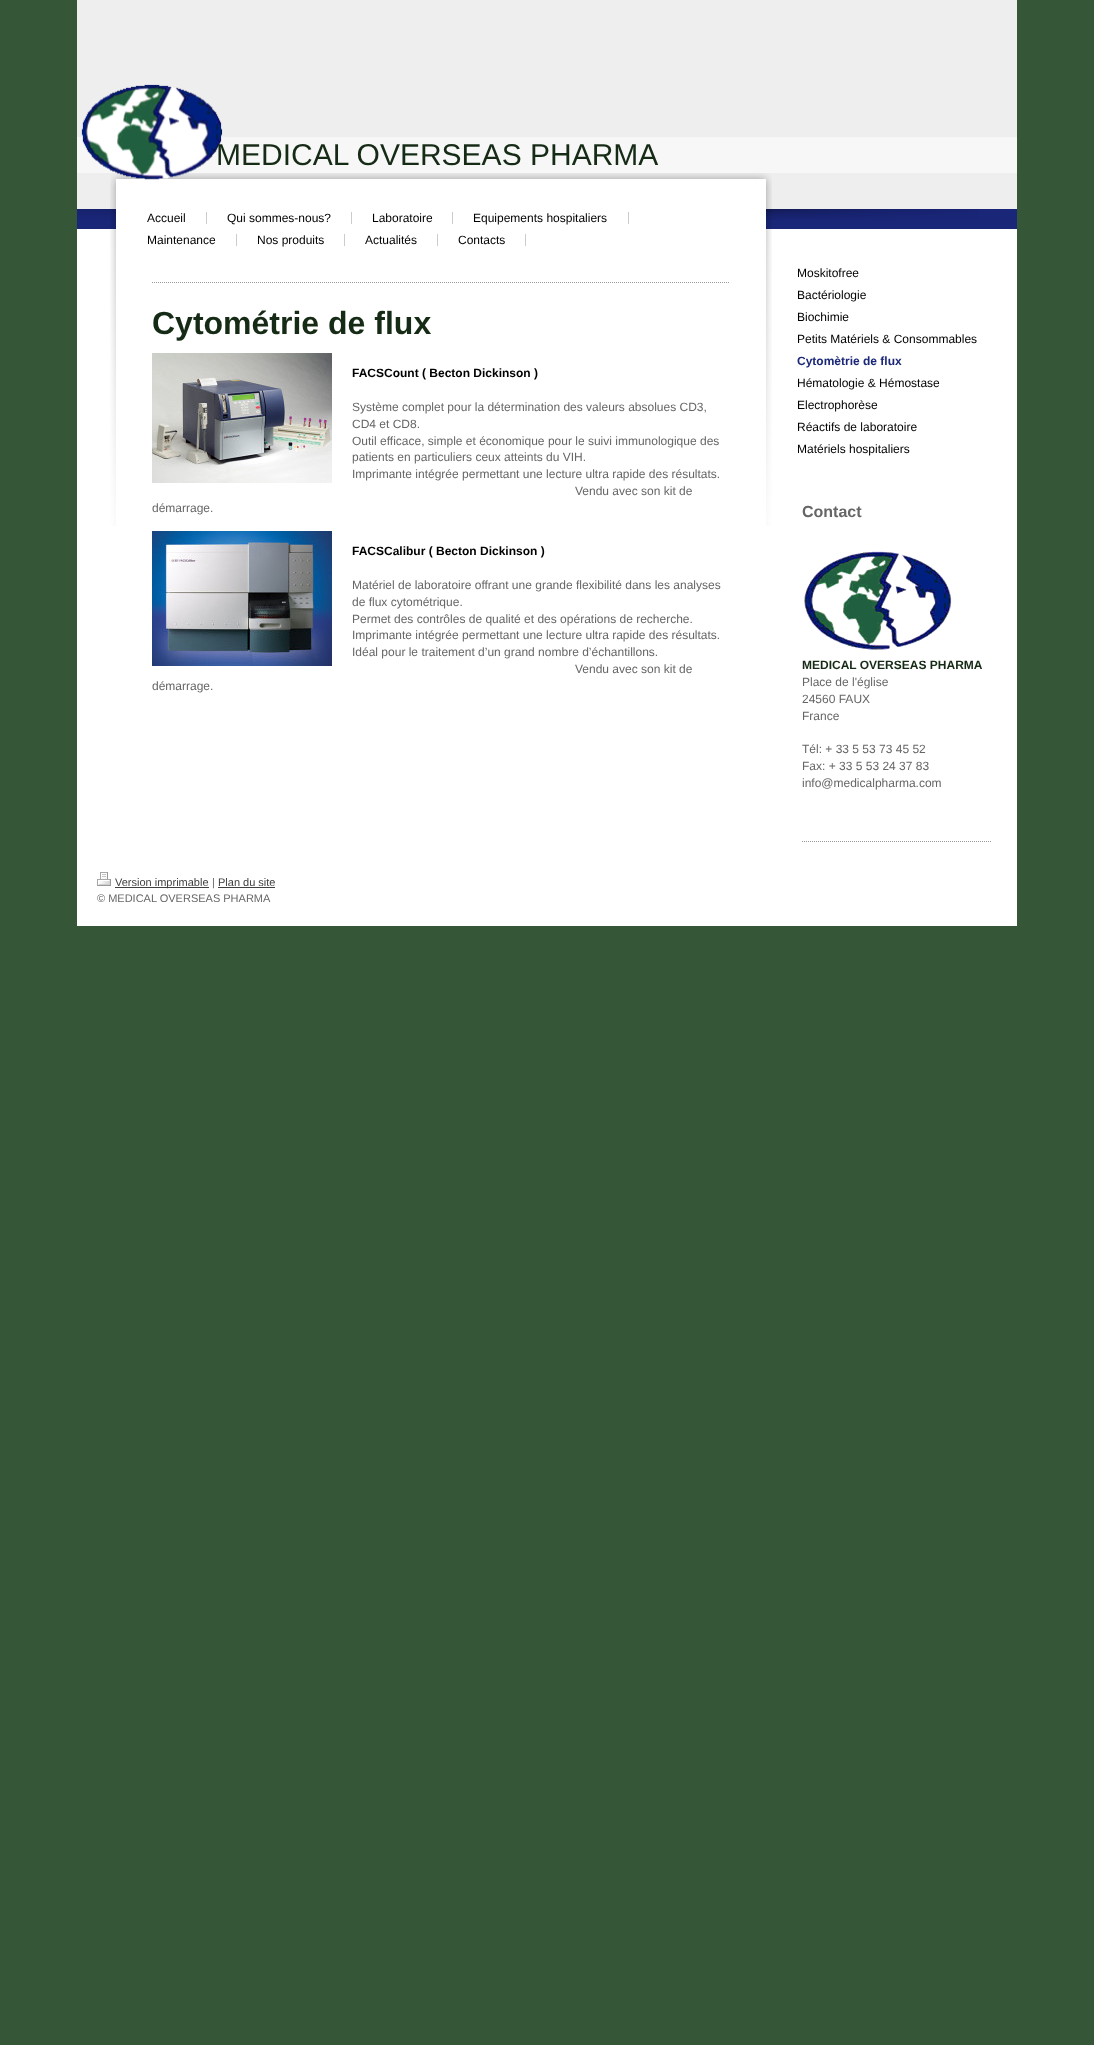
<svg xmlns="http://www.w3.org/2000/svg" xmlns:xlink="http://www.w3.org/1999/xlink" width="1094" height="2045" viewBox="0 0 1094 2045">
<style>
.cls-1{font:30px Liberation Sans;fill:#162b16}
.cls-2{font:12px Liberation Sans;fill:#000000}
.cls-3{font:bold 32px Liberation Sans;fill:#162b16}
.cls-4{font:bold 12px Liberation Sans;fill:#000000}
.cls-5{font:12px Liberation Sans;fill:#666666}
.cls-6{font:bold 12px Liberation Sans;fill:#1a2678}
.cls-7{font:bold 16px Liberation Sans;fill:#666666}
.cls-8{font:bold 12px Liberation Sans;fill:#162b16}
.cls-9{font:11px Liberation Sans;fill:#404040}
.cls-10{font:11px Liberation Sans;fill:#666666}
</style>
<rect width="100%" height="100%" fill="#365737"/>
<rect fill="#ffffff" x="77" y="229" width="940" height="697"/>
<rect fill="#eeeeee" x="77" y="0" width="940" height="209"/>
<rect fill="#f7f7f7" x="77" y="137" width="940" height="36"/>
<rect fill="#1a2678" x="77" y="209" width="940" height="20"/>
<image xlink:href="image1.png" x="77" y="209" width="902" height="11"/>
<image xlink:href="image2.png" x="110" y="173" width="662" height="353"/>
<image xlink:href="image0.png" x="81" y="84" width="142" height="96"/>
<rect fill="#cccccc" x="206" y="212" width="1" height="12"/>
<rect fill="#cccccc" x="351" y="212" width="1" height="12"/>
<rect fill="#cccccc" x="452" y="212" width="1" height="12"/>
<rect fill="#cccccc" x="628" y="212" width="1" height="12"/>
<rect fill="#cccccc" x="236" y="234" width="1" height="12"/>
<rect fill="#cccccc" x="344" y="234" width="1" height="12"/>
<rect fill="#cccccc" x="437" y="234" width="1" height="12"/>
<rect fill="#cccccc" x="525" y="234" width="1" height="12"/>
<path fill="none" stroke="#999999" stroke-dasharray="1 1" d="M152 282.5H730"/>
<image xlink:href="image3.png" x="152" y="353" width="180" height="130"/>
<image xlink:href="image4.png" x="152" y="531" width="180" height="135"/>
<image xlink:href="image5.png" x="804" y="551" width="148" height="99"/>
<path fill="none" stroke="#999999" stroke-dasharray="1 1" d="M802 841.5H992"/>
<image xlink:href="image6.png" x="97" y="872" width="14" height="14"/>
<rect fill="#404040" x="115" y="887" width="94" height="1"/>
<rect fill="#404040" x="218" y="887" width="57" height="1"/>
<text class="cls-1" x="216" y="165">MEDICAL OVERSEAS PHARMA</text>
<text class="cls-2" x="147" y="222">Accueil</text>
<text class="cls-2" x="227" y="222">Qui sommes-nous?</text>
<text class="cls-2" x="372" y="222">Laboratoire</text>
<text class="cls-2" x="473" y="222">Equipements hospitaliers</text>
<text class="cls-2" x="147" y="244">Maintenance</text>
<text class="cls-2" x="257" y="244">Nos produits</text>
<text class="cls-2" x="365" y="244">Actualités</text>
<text class="cls-2" x="458" y="244">Contacts</text>
<text class="cls-3" x="152" y="334">Cytométrie de flux</text>
<text class="cls-4" x="352" y="377">FACSCount ( Becton Dickinson )</text>
<text class="cls-5"><tspan x="352" y="411">Système complet pour la détermination des valeurs absolues CD3,</tspan><tspan x="352" y="428">CD4 et CD8.</tspan><tspan x="352" y="445">Outil efficace, simple et économique pour le suivi immunologique des</tspan><tspan x="352" y="461">patients en particuliers ceux atteints du VIH.</tspan><tspan x="352" y="478">Imprimante intégrée permettant une lecture ultra rapide des résultats.</tspan></text>
<text class="cls-5" x="575" y="495">Vendu avec son kit de</text>
<text class="cls-5" x="152" y="512">démarrage.</text>
<text class="cls-4" x="352" y="555">FACSCalibur ( Becton Dickinson )</text>
<text class="cls-5"><tspan x="352" y="589">Matériel de laboratoire offrant une grande flexibilité dans les analyses</tspan><tspan x="352" y="606">de flux cytométrique.</tspan><tspan x="352" y="623">Permet des contrôles de qualité et des opérations de recherche.</tspan><tspan x="352" y="639">Imprimante intégrée permettant une lecture ultra rapide des résultats.</tspan><tspan x="352" y="656">Idéal pour le traitement d’un grand nombre d’échantillons.</tspan></text>
<text class="cls-5" x="575" y="673">Vendu avec son kit de</text>
<text class="cls-5" x="152" y="690">démarrage.</text>
<text class="cls-2"><tspan x="797" y="277">Moskitofree</tspan><tspan x="797" y="299">Bactériologie</tspan><tspan x="797" y="321">Biochimie</tspan><tspan x="797" y="343">Petits Matériels &amp; Consommables</tspan></text>
<text class="cls-6" x="797" y="365">Cytomètrie de flux</text>
<text class="cls-2"><tspan x="797" y="387">Hématologie &amp; Hémostase</tspan><tspan x="797" y="409">Electrophorèse</tspan><tspan x="797" y="431">Réactifs de laboratoire</tspan><tspan x="797" y="453">Matériels hospitaliers</tspan></text>
<text class="cls-7" x="802" y="517">Contact</text>
<text class="cls-8" x="802" y="669">MEDICAL OVERSEAS PHARMA</text>
<text class="cls-5"><tspan x="802" y="686">Place de l'église</tspan><tspan x="802" y="703">24560 FAUX</tspan><tspan x="802" y="720">France</tspan></text>
<text class="cls-5"><tspan x="802" y="753">Tél: + 33 5 53 73 45 52</tspan><tspan x="802" y="770">Fax: + 33 5 53 24 37 83</tspan><tspan x="802" y="787">info@medicalpharma.com</tspan></text>
<text class="cls-9" x="115" y="886">Version imprimable</text>
<text class="cls-10" x="212" y="886">|</text>
<text class="cls-9" x="218" y="886">Plan du site</text>
<text class="cls-10" x="97" y="902">© MEDICAL OVERSEAS PHARMA</text>
</svg>
